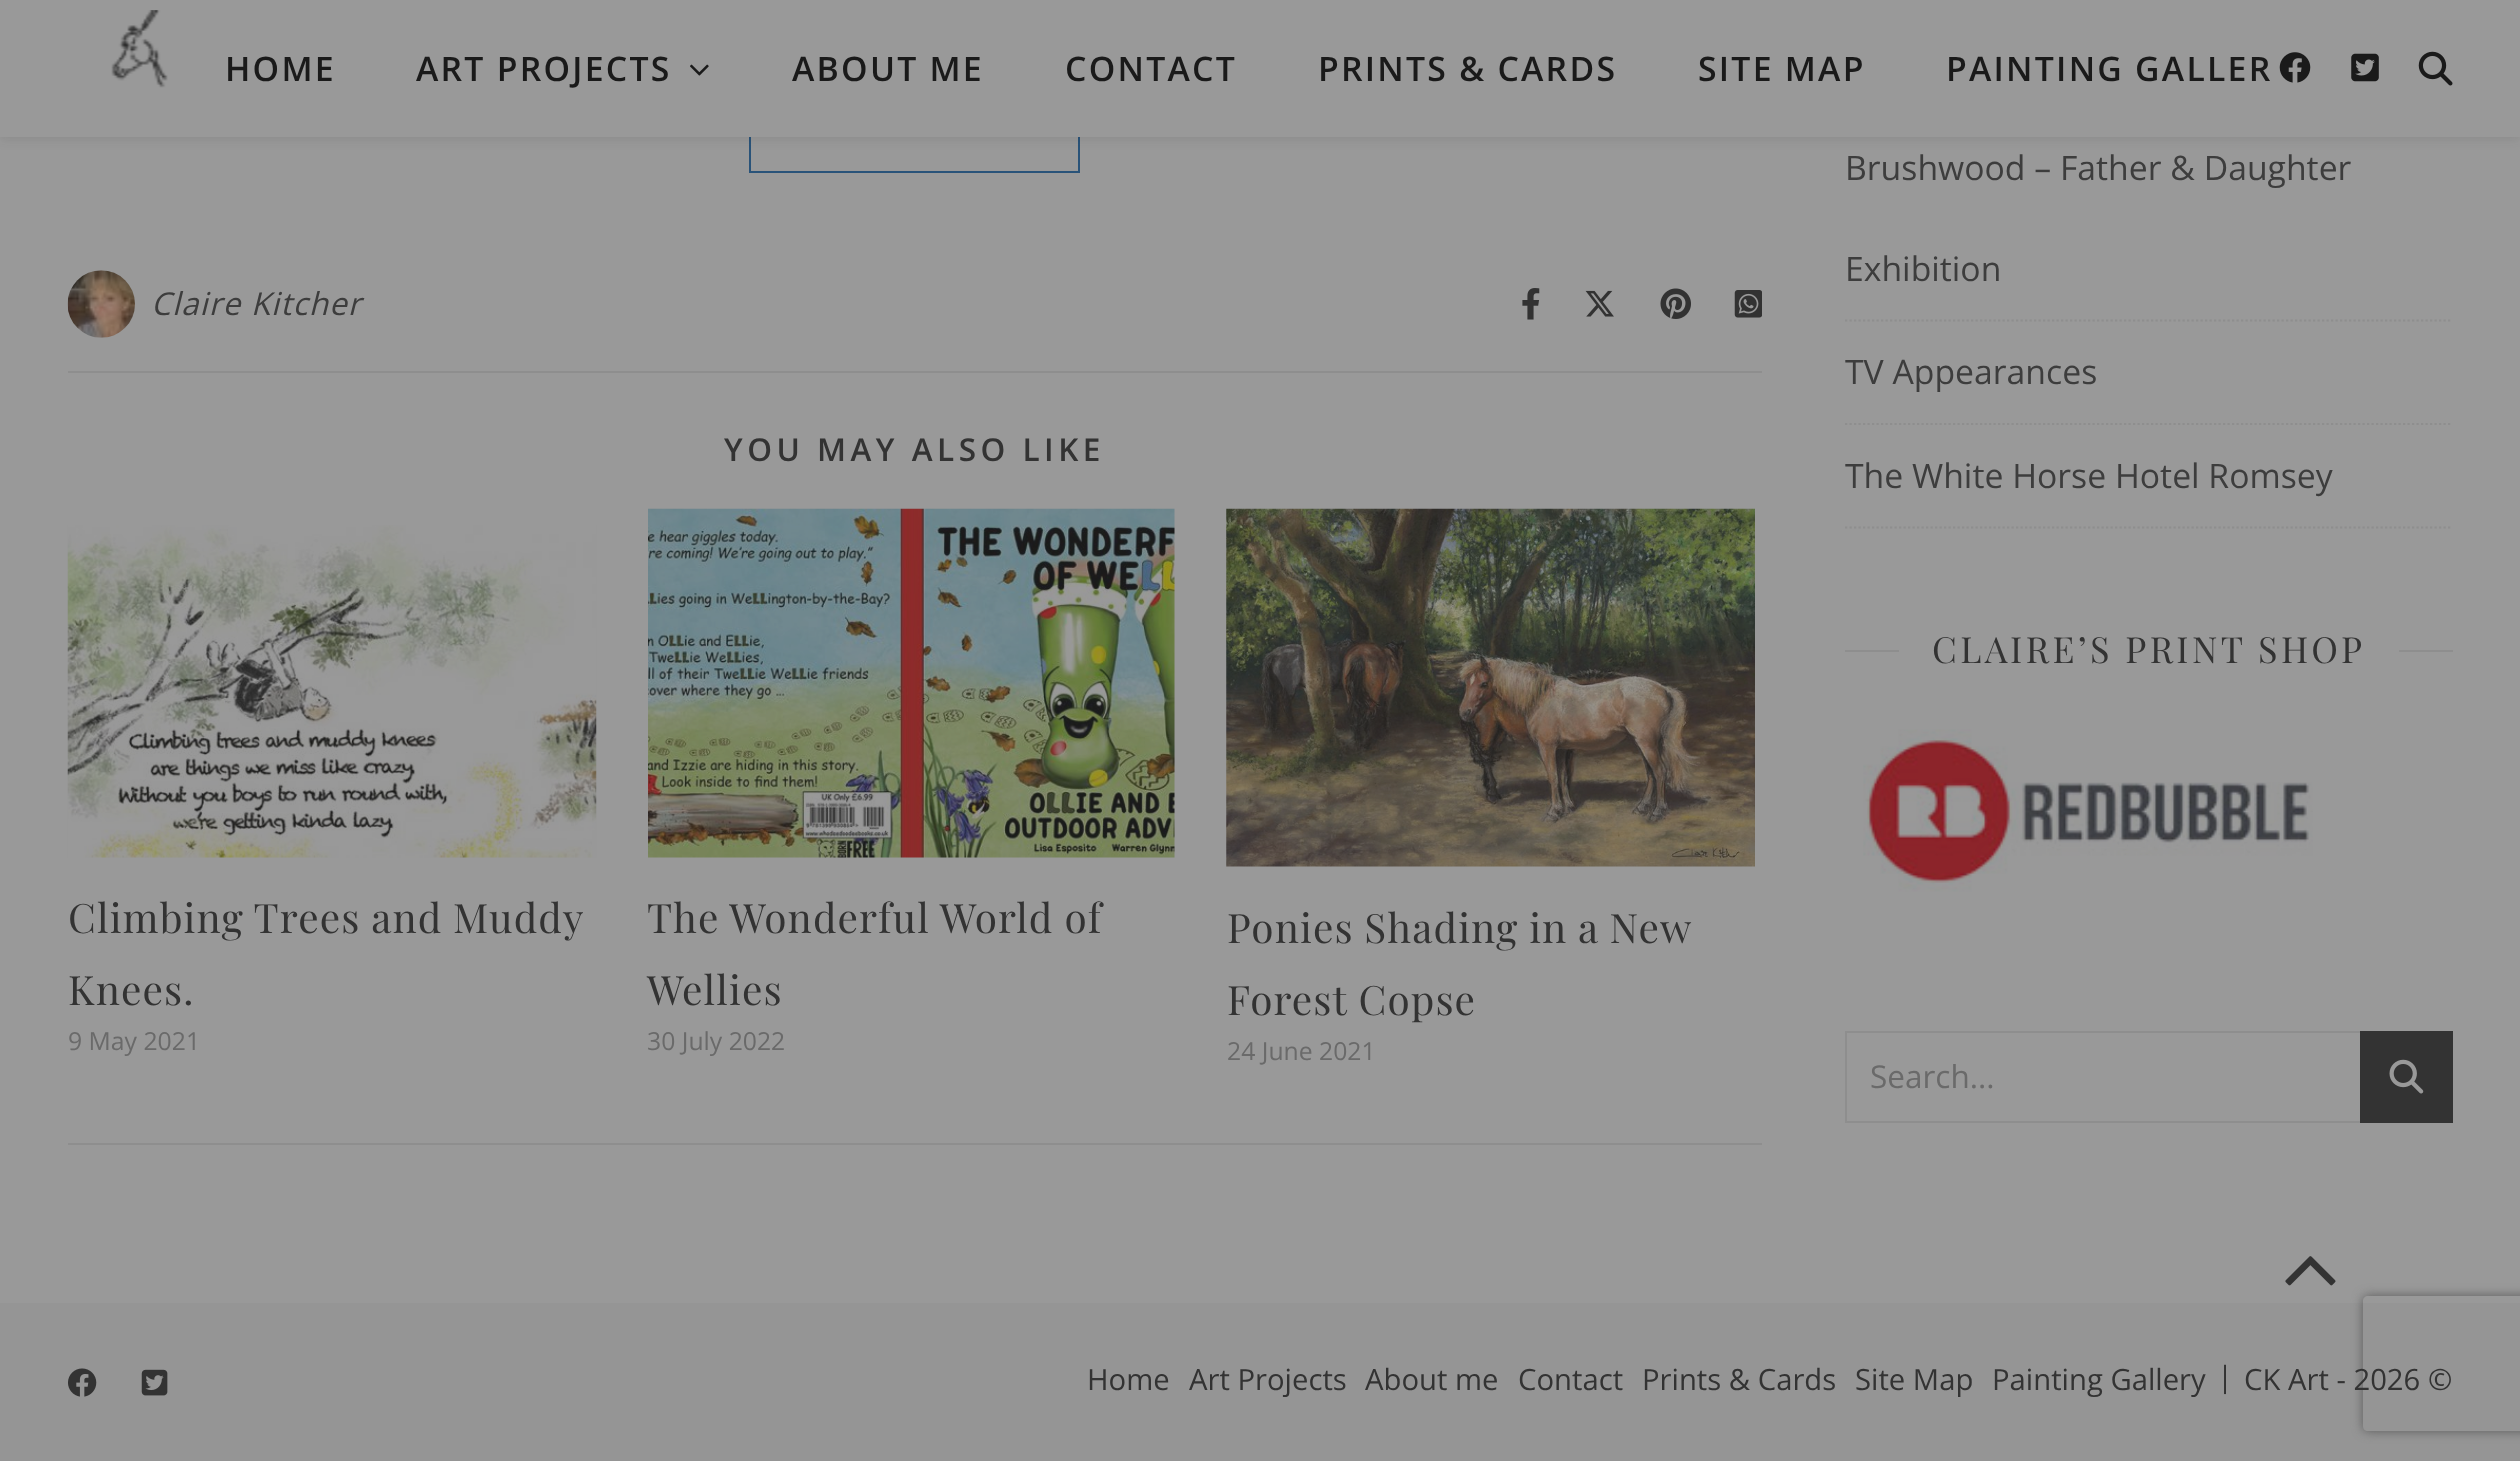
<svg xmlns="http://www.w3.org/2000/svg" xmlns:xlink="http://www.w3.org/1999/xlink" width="2520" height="1461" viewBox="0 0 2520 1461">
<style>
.cls-1{font:600 33.75px Open Sans;letter-spacing:2.25px;fill:#1a1a1a}
.cls-2{font:italic 31.5px Open Sans;letter-spacing:1.1px;fill:#3d3d3d}
.cls-3{font:600 31.5px Open Sans;letter-spacing:4.5px;fill:#333333}
.cls-4{font:40.5px Playfair Display;letter-spacing:1.1px;fill:#333333}
.cls-5{font:24.75px Open Sans;fill:#6a6a6a}
.cls-6{font:33.75px Open Sans;fill:#3d3d3d}
.cls-7{font:36px Playfair Display;letter-spacing:3.4px;fill:#333333}
.cls-8{font:31.5px Open Sans;fill:#6a6a6a}
.cls-9{font:29.25px Open Sans;fill:#333333}
</style>
<defs>
<clipPath id="clip1"><path d="M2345 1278H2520V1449H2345ZM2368 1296H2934C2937 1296 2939 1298 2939 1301V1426C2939 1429 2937 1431 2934 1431H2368C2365 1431 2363 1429 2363 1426V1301C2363 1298 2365 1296 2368 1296Z" clip-rule="evenodd"/></clipPath>
</defs>
<rect width="100%" height="100%" fill="#999999"/>
<rect fill="none" stroke="#295379" stroke-width="2" x="750" y="82" width="329" height="90"/>
<rect fill="#1a1a1a" fill-opacity="0.1" filter="blur(5.5px)" x="0" y="2" width="2520" height="138"/>
<rect fill="#999999" x="0" y="0" width="2520" height="137"/>
<image xlink:href="image0.png" x="111" y="10" width="57" height="78"/>
<image xlink:href="image1.png" x="690" y="64" width="19" height="12"/>
<image xlink:href="image2.png" x="2279" y="52" width="32" height="31"/>
<image xlink:href="image3.png" x="2351" y="53" width="28" height="29"/>
<image xlink:href="image4.png" x="2418" y="51" width="35" height="35"/>
<rect fill="#8e8e8e" x="68" y="371" width="1694" height="2"/>
<image xlink:href="image5.png" x="67" y="270" width="68" height="68"/>
<image xlink:href="image6.png" x="1522" y="288" width="18" height="32"/>
<image xlink:href="image7.png" x="1585" y="290" width="29" height="27"/>
<image xlink:href="image8.png" x="1660" y="288" width="31" height="31"/>
<image xlink:href="image9.png" x="1734" y="290" width="28" height="28"/>
<rect fill="#8e8e8e" x="68" y="1143" width="1694" height="2"/>
<image xlink:href="image10.png" x="67" y="525" width="530" height="333"/>
<image xlink:href="image11.png" x="648" y="508" width="527" height="350"/>
<image xlink:href="image12.png" x="1226" y="508" width="529" height="359"/>
<path fill="none" stroke="#8e8e8e" stroke-width="2.2" stroke-dasharray="2.25 2.25" d="M1845 320.5H2452.5"/>
<path fill="none" stroke="#8e8e8e" stroke-width="2.2" stroke-dasharray="2.25 2.25" d="M1845 424H2452.5"/>
<path fill="none" stroke="#8e8e8e" stroke-width="2.2" stroke-dasharray="2.25 2.25" d="M1845 527.5H2452.5"/>
<rect fill="#8e8e8e" x="1845" y="650" width="54" height="2"/>
<rect fill="#8e8e8e" x="2399" y="650" width="54" height="2"/>
<image xlink:href="image13.png" x="1863" y="729" width="450" height="163"/>
<rect fill="none" stroke="#8e8e8e" stroke-width="2" x="1846" y="1032" width="606" height="90"/>
<rect fill="#333333" x="2360" y="1031" width="93" height="92"/>
<image xlink:href="image14.png" x="2389" y="1059" width="35" height="35"/>
<rect fill="#959595" x="0" y="1303" width="2520" height="158"/>
<image xlink:href="image15.png" x="2285" y="1256" width="51" height="30"/>
<image xlink:href="image16.png" x="68" y="1368" width="29" height="29"/>
<image xlink:href="image17.png" x="141" y="1369" width="27" height="27"/>
<g clip-path="url(#clip1)">
<rect fill="#5a5a5a" filter="blur(5.5px)" x="2363" y="1296" width="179" height="135" rx="5"/>
</g>
<text class="cls-1" x="225" y="81">HOME</text>
<text class="cls-1" x="416" y="81">ART PROJECTS</text>
<text class="cls-1" x="792" y="81">ABOUT ME</text>
<text class="cls-1" x="1065" y="81">CONTACT</text>
<text class="cls-1" x="1318" y="81">PRINTS &amp; CARDS</text>
<text class="cls-1" x="1698" y="81">SITE MAP</text>
<text class="cls-1" x="1946" y="81">PAINTING GALLER</text>
<text class="cls-2" x="151" y="315">Claire Kitcher</text>
<text class="cls-3" x="724" y="461">YOU MAY ALSO LIKE</text>
<text class="cls-4"><tspan x="68" y="933" word-spacing="-0.5">Climbing Trees and Muddy</tspan><tspan x="68" y="1005">Knees.</tspan></text>
<text class="cls-5" x="68" y="1050">9 May 2021</text>
<text class="cls-4"><tspan x="647" y="933">The Wonderful World of</tspan><tspan x="647" y="1005">Wellies</tspan></text>
<text class="cls-5" x="647" y="1050">30 July 2022</text>
<text class="cls-4"><tspan x="1227" y="943" word-spacing="-0.5">Ponies Shading in a New</tspan><tspan x="1227" y="1015">Forest Copse</tspan></text>
<text class="cls-5" x="1227" y="1060">24 June 2021</text>
<text class="cls-6" x="1845" y="180">Brushwood – Father &amp; Daughter</text>
<text class="cls-6" x="1845" y="281">Exhibition</text>
<text class="cls-6" x="1845" y="384">TV Appearances</text>
<text class="cls-6" x="1845" y="488">The White Horse Hotel Romsey</text>
<text class="cls-7" x="1932" y="663">CLAIRE’S PRINT SHOP</text>
<text class="cls-8" x="1870" y="1088">Search...</text>
<text class="cls-9" x="1087" y="1390">Home</text>
<text class="cls-9" x="1189" y="1390">Art Projects</text>
<text class="cls-9" x="1365" y="1390">About me</text>
<text class="cls-9" x="1518" y="1390">Contact</text>
<text class="cls-9" x="1642" y="1390">Prints &amp; Cards</text>
<text class="cls-9" x="1855" y="1390">Site Map</text>
<text class="cls-9" x="1992" y="1390">Painting Gallery</text>
<text class="cls-9" x="2217" y="1387">|</text>
<text class="cls-9" x="2244" y="1390">CK Art - 2026 ©</text>
</svg>
